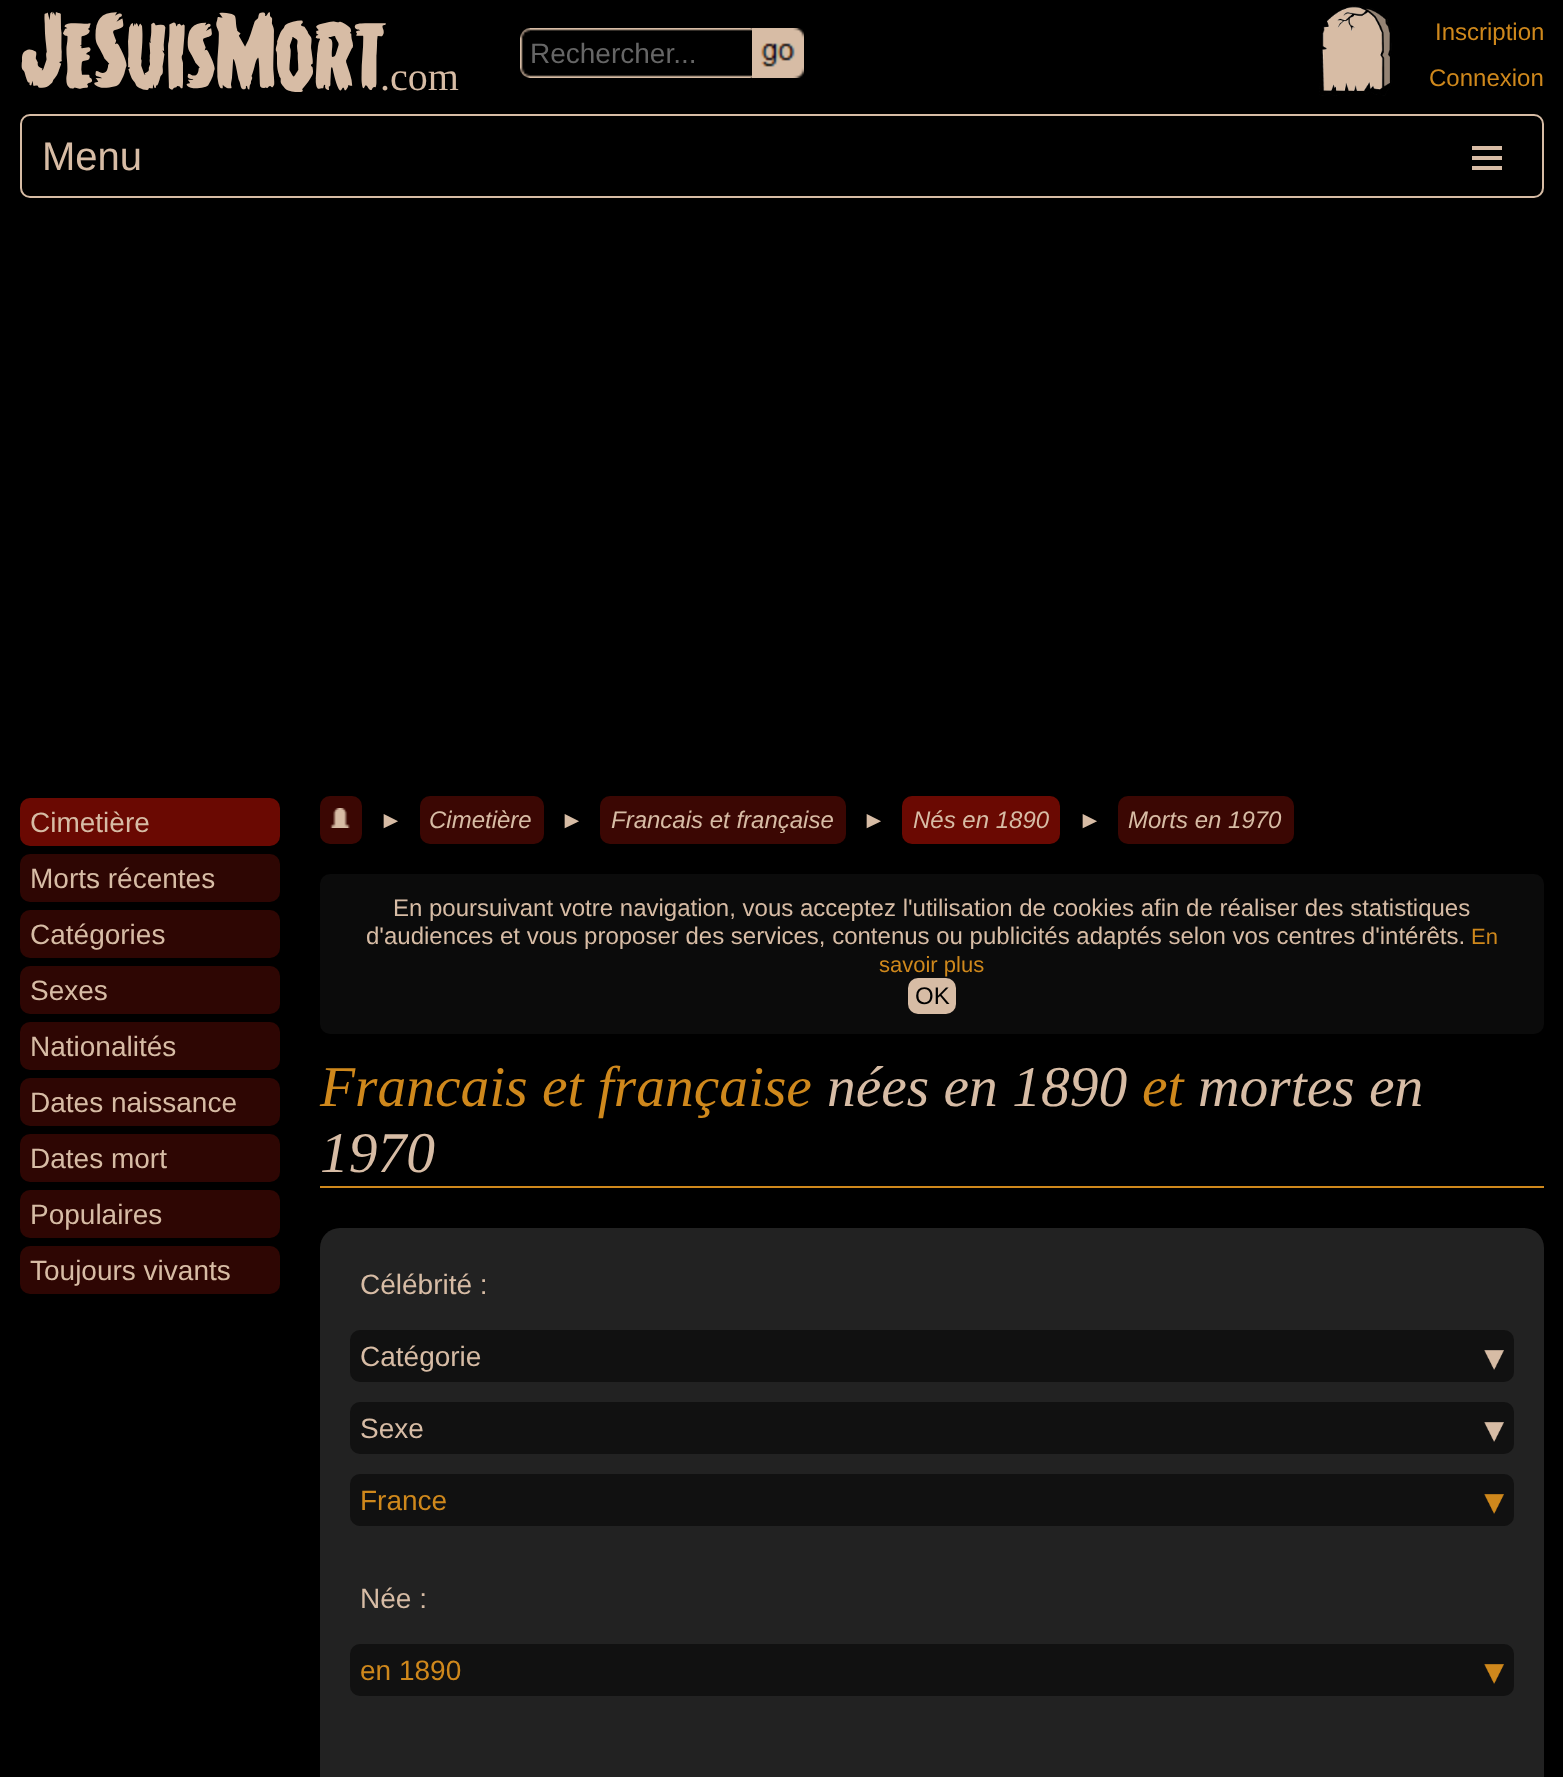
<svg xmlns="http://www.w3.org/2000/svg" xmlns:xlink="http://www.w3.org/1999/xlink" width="1563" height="1777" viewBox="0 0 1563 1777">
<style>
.cls-1{font:104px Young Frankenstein;fill:#d7bca5}
.cls-2{font:40px Liberation Serif;fill:#d7bca5}
.cls-3{font:28px Liberation Sans;fill:#666666}
.cls-4{font:24px Liberation Sans;fill:#cf881c}
.cls-5{font:40px Liberation Sans;fill:#d7bca5}
.cls-6{font:28px Liberation Sans;fill:#d7bca5}
.cls-7{font:24px Liberation Sans;fill:#d7bca5}
.cls-8{font:italic 24px Liberation Sans;fill:#d7bca5}
.cls-9{font:22px Liberation Sans;fill:#cf881c}
.cls-10{font:24px Liberation Sans;fill:#000000}
.cls-11{font:italic 57.5px Liberation Serif;fill:#cf881c}
.cls-12{font:italic 57.5px Liberation Serif;fill:#d7bca5}
.cls-13{font:28px Liberation Sans;fill:#cf881c}
</style>
<rect width="100%" height="100%" fill="#000000"/>
<image xlink:href="image0.png" x="520" y="28" width="232" height="50"/>
<image xlink:href="image1.png" x="752" y="28" width="52" height="50"/>
<image xlink:href="image2.png" x="1319" y="6" width="73" height="90"/>
<rect fill="none" stroke="#d7bca5" stroke-width="2" x="21" y="115" width="1522" height="82" rx="9"/>
<rect fill="#d7bca5" x="1472" y="146" width="30" height="4"/>
<rect fill="#d7bca5" x="1472" y="156" width="30" height="4"/>
<rect fill="#d7bca5" x="1472" y="166" width="30" height="4"/>
<rect fill="#6a0902" x="20" y="798" width="260" height="48" rx="10"/>
<rect fill="#2e0603" x="20" y="854" width="260" height="48" rx="10"/>
<rect fill="#2e0603" x="20" y="910" width="260" height="48" rx="10"/>
<rect fill="#2e0603" x="20" y="966" width="260" height="48" rx="10"/>
<rect fill="#2e0603" x="20" y="1022" width="260" height="48" rx="10"/>
<rect fill="#2e0603" x="20" y="1078" width="260" height="48" rx="10"/>
<rect fill="#2e0603" x="20" y="1134" width="260" height="48" rx="10"/>
<rect fill="#2e0603" x="20" y="1190" width="260" height="48" rx="10"/>
<rect fill="#2e0603" x="20" y="1246" width="260" height="48" rx="10"/>
<rect fill="#3b0703" x="320" y="796" width="42" height="48" rx="10"/>
<image xlink:href="image3.png" x="330" y="808" width="20" height="20"/>
<rect fill="#3b0703" x="420" y="796" width="124" height="48" rx="10"/>
<rect fill="#3b0703" x="600" y="796" width="246" height="48" rx="10"/>
<rect fill="#6a0902" x="902" y="796" width="158" height="48" rx="10"/>
<rect fill="#3b0703" x="1118" y="796" width="176" height="48" rx="10"/>
<rect fill="#0b0b0b" x="320" y="874" width="1224" height="160" rx="10"/>
<rect fill="#d7bca5" x="908" y="978" width="48" height="36" rx="10"/>
<rect fill="#cf881c" x="320" y="1186" width="1224" height="2"/>
<rect fill="#222222" x="320" y="1228" width="1224" height="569" rx="20"/>
<rect fill="#111111" x="350" y="1330" width="1164" height="52" rx="10"/>
<image xlink:href="image4.png" x="1484" y="1350" width="20" height="20"/>
<rect fill="#111111" x="350" y="1402" width="1164" height="52" rx="10"/>
<image xlink:href="image4.png" x="1484" y="1422" width="20" height="20"/>
<rect fill="#111111" x="350" y="1474" width="1164" height="52" rx="10"/>
<image xlink:href="image5.png" x="1484" y="1494" width="20" height="20"/>
<rect fill="#111111" x="350" y="1644" width="1164" height="52" rx="10"/>
<image xlink:href="image5.png" x="1484" y="1664" width="20" height="20"/>
<text class="cls-1" x="20" y="92">JeSuisMort</text>
<text class="cls-2" x="380" y="90">.com</text>
<text class="cls-3" x="530" y="63">Rechercher...</text>
<text class="cls-4" x="1435" y="40">Inscription</text>
<text class="cls-4" x="1429" y="86">Connexion</text>
<text class="cls-5" x="42" y="170">Menu</text>
<text class="cls-6" x="30" y="832">Cimetière</text>
<text class="cls-6" x="30" y="888">Morts récentes</text>
<text class="cls-6" x="30" y="944">Catégories</text>
<text class="cls-6" x="30" y="1000">Sexes</text>
<text class="cls-6" x="30" y="1056">Nationalités</text>
<text class="cls-6" x="30" y="1112">Dates naissance</text>
<text class="cls-6" x="30" y="1168">Dates mort</text>
<text class="cls-6" x="30" y="1224">Populaires</text>
<text class="cls-6" x="30" y="1280">Toujours vivants</text>
<text class="cls-7" x="379" y="828">►</text>
<text class="cls-8" x="429" y="828">Cimetière</text>
<text class="cls-7" x="560" y="828">►</text>
<text class="cls-8" x="611" y="828">Francais et française</text>
<text class="cls-7" x="862" y="828">►</text>
<text class="cls-8" x="913" y="828">Nés en 1890</text>
<text class="cls-7" x="1078" y="828">►</text>
<text class="cls-8" x="1128" y="828">Morts en 1970</text>
<text class="cls-7" x="393" y="916">En poursuivant votre navigation, vous acceptez l'utilisation de cookies afin de réaliser des statistiques</text>
<text class="cls-7" x="366" y="944">d'audiences et vous proposer des services, contenus ou publicités adaptés selon vos centres d'intérêts.</text>
<text class="cls-9" x="1471" y="944">En</text>
<text class="cls-9" x="879" y="972">savoir plus</text>
<text class="cls-10" x="915" y="1004">OK</text>
<text class="cls-11" x="320" y="1106">Francais et française</text>
<text class="cls-12" x="827" y="1106">nées en 1890</text>
<text class="cls-11" x="1142" y="1106">et</text>
<text class="cls-12" x="1198" y="1106">mortes en</text>
<text class="cls-12" x="320" y="1172">1970</text>
<text class="cls-6" x="360" y="1294">Célébrité :</text>
<text class="cls-6" x="360" y="1366">Catégorie</text>
<text class="cls-6" x="360" y="1438">Sexe</text>
<text class="cls-13" x="360" y="1510">France</text>
<text class="cls-6" x="360" y="1608">Née :</text>
<text class="cls-13" x="360" y="1680">en 1890</text>
</svg>
